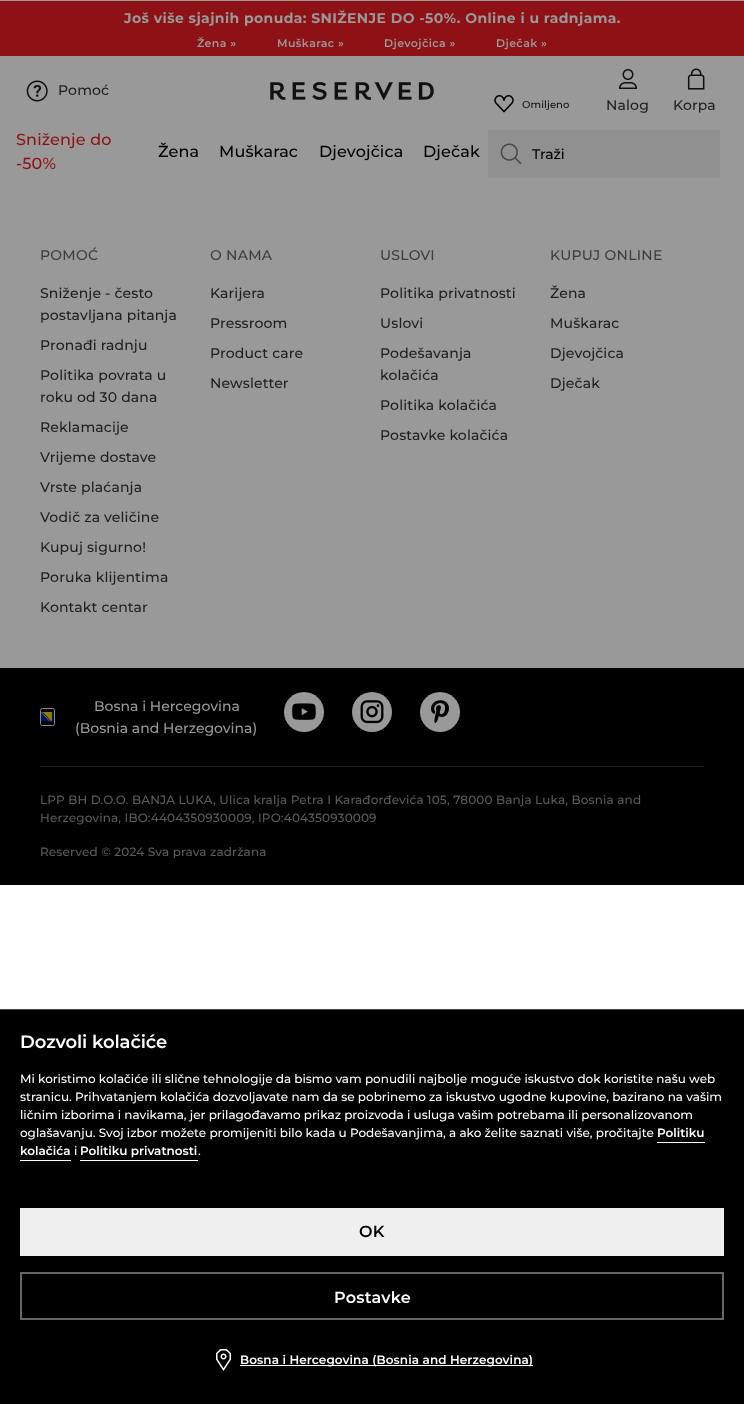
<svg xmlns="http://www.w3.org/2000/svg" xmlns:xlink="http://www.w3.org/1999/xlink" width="744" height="1404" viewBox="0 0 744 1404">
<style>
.cls-1{font:bold 14px Montserrat;letter-spacing:0.4px;fill:#999999}
.cls-2{font:600 11px Montserrat;letter-spacing:0.4px;fill:#999999}
.cls-3{font:500 14px Montserrat;letter-spacing:0.15px;fill:#1f1f1f}
.cls-4{font:500 10px Montserrat;letter-spacing:0.1px;fill:#0f0f10}
.cls-5{font:500 16px Montserrat;letter-spacing:0.15px;fill:#8e1116}
.cls-6{font:500 16px Montserrat;letter-spacing:0.15px;fill:#000000}
.cls-7{font:500 14px Montserrat;fill:#000000}
.cls-8{font:500 14px Montserrat;letter-spacing:0.25px;fill:#3d3d3d}
.cls-9{font:500 14px Montserrat;fill:#999999}
.cls-10{font:500 12px Montserrat;letter-spacing:0.15px;fill:#5c5c5c}
.cls-11{font:600 18px Montserrat;letter-spacing:-0.1px;fill:#ffffff}
.cls-12{font:500 12px Montserrat;fill:#ffffff}
.cls-13{font:600 12px Montserrat;fill:#ffffff}
.cls-14{font:600 16px Montserrat;letter-spacing:0.25px;fill:#000000}
.cls-15{font:600 16px Montserrat;letter-spacing:0.25px;fill:#ffffff}
.cls-16{font:600 12px Montserrat;letter-spacing:0.1px;fill:#ffffff}
</style>
<rect width="100%" height="100%" fill="#ffffff"/>
<rect fill="#999999" x="0" y="0" width="744" height="668"/>
<rect fill="#8e1116" x="0" y="1" width="744" height="55"/>
<image xlink:href="image0.png" x="26" y="80" width="22" height="22"/>
<image xlink:href="image1.png" x="270" y="82" width="164" height="18"/>
<image xlink:href="image2.png" x="494" y="95" width="20" height="18"/>
<image xlink:href="image3.png" x="619" y="69" width="18" height="20"/>
<image xlink:href="image4.png" x="687" y="68" width="18" height="22"/>
<rect fill="#909090" x="488" y="130" width="232" height="48"/>
<image xlink:href="image5.png" x="500" y="143" width="22" height="22"/>
<rect fill="#000000" x="0" y="668" width="744" height="217"/>
<image xlink:href="image6.png" x="41" y="712" width="13" height="10"/>
<rect fill="none" stroke="#898989" x="40.5" y="708.5" width="14" height="17" rx="2"/>
<circle fill="#999999" cx="304" cy="712" r="20"/>
<image xlink:href="image7.png" x="292" y="703" width="24" height="17"/>
<circle fill="#999999" cx="372" cy="712" r="20"/>
<image xlink:href="image8.png" x="360" y="700" width="24" height="24"/>
<circle fill="#999999" cx="440" cy="712" r="20"/>
<image xlink:href="image9.png" x="431" y="700" width="18" height="23"/>
<rect fill="#1f1f1f" x="40" y="766" width="664" height="1"/>
<rect fill="#000000" x="0" y="1010" width="744" height="394"/>
<rect fill="#474747" x="0" y="1009" width="744" height="1"/>
<rect fill="#ffffff" x="657" y="1142" width="48" height="1"/>
<rect fill="#ffffff" x="20" y="1160" width="51" height="1"/>
<rect fill="#ffffff" x="80" y="1160" width="118" height="1"/>
<rect fill="#efefef" x="20" y="1208" width="704" height="48"/>
<rect fill="none" stroke="#666666" stroke-width="2" x="21" y="1273" width="702" height="46"/>
<image xlink:href="image10.png" x="216" y="1349" width="15" height="22"/>
<rect fill="#ffffff" x="240" y="1365" width="293" height="1"/>
<text class="cls-1" x="124" y="23">Još više sjajnih ponuda: SNIŽENJE DO -50%. Online i u radnjama.</text>
<text class="cls-2" x="197" y="47">Žena »</text>
<text class="cls-2" x="277" y="47">Muškarac »</text>
<text class="cls-2" x="384" y="47">Djevojčica »</text>
<text class="cls-2" x="496" y="47">Dječak »</text>
<text class="cls-3" x="58" y="95">Pomoć</text>
<text class="cls-4" x="522" y="108">Omiljeno</text>
<text class="cls-3" x="606" y="110">Nalog</text>
<text class="cls-3" x="673" y="110">Korpa</text>
<text class="cls-5"><tspan x="16" y="145">Sniženje do</tspan><tspan x="16" y="169">-50%</tspan></text>
<text class="cls-6" x="158" y="157">Žena</text>
<text class="cls-6" x="219" y="157">Muškarac</text>
<text class="cls-6" x="319" y="157">Djevojčica</text>
<text class="cls-6" x="423" y="157">Dječak</text>
<text class="cls-7" x="532" y="159">Traži</text>
<text class="cls-8" x="40" y="260">POMOĆ</text>
<text class="cls-3"><tspan x="40" y="298">Sniženje - često</tspan><tspan x="40" y="320">postavljana pitanja</tspan></text>
<text class="cls-3" x="40" y="350">Pronađi radnju</text>
<text class="cls-3"><tspan x="40" y="380">Politika povrata u</tspan><tspan x="40" y="402">roku od 30 dana</tspan></text>
<text class="cls-3" x="40" y="432">Reklamacije</text>
<text class="cls-3" x="40" y="462">Vrijeme dostave</text>
<text class="cls-3" x="40" y="492">Vrste plaćanja</text>
<text class="cls-3" x="40" y="522">Vodič za veličine</text>
<text class="cls-3" x="40" y="552">Kupuj sigurno!</text>
<text class="cls-3" x="40" y="582">Poruka klijentima</text>
<text class="cls-3" x="40" y="612">Kontakt centar</text>
<text class="cls-8" x="210" y="260">O NAMA</text>
<text class="cls-3" x="210" y="298">Karijera</text>
<text class="cls-3" x="210" y="328">Pressroom</text>
<text class="cls-3" x="210" y="358">Product care</text>
<text class="cls-3" x="210" y="388">Newsletter</text>
<text class="cls-8" x="380" y="260">USLOVI</text>
<text class="cls-3" x="380" y="298">Politika privatnosti</text>
<text class="cls-3" x="380" y="328">Uslovi</text>
<text class="cls-3"><tspan x="380" y="358">Podešavanja</tspan><tspan x="380" y="380">kolačića</tspan></text>
<text class="cls-3" x="380" y="410">Politika kolačića</text>
<text class="cls-3" x="380" y="440">Postavke kolačića</text>
<text class="cls-8" x="550" y="260">KUPUJ ONLINE</text>
<text class="cls-3" x="550" y="298">Žena</text>
<text class="cls-3" x="550" y="328">Muškarac</text>
<text class="cls-3" x="550" y="358">Djevojčica</text>
<text class="cls-3" x="550" y="388">Dječak</text>
<text class="cls-9" x="94" y="711">Bosna i Hercegovina</text>
<text class="cls-9" x="75" y="733">(Bosnia and Herzegovina)</text>
<text class="cls-10"><tspan x="40" y="804">LPP BH D.O.O. BANJA LUKA, Ulica kralja Petra I Karađorđevića 105, 78000 Banja Luka, Bosnia and</tspan><tspan x="40" y="822">Herzegovina, IBO:4404350930009, IPO:404350930009</tspan></text>
<text class="cls-10" x="40" y="856">Reserved © 2024 Sva prava zadržana</text>
<text class="cls-11" x="20" y="1048">Dozvoli kolačiće</text>
<text class="cls-12"><tspan x="20" y="1083">Mi koristimo kolačiće ili slične tehnologije da bismo vam ponudili najbolje moguće iskustvo dok koristite našu web</tspan><tspan x="20" y="1101">stranicu. Prihvatanjem kolačića dozvoljavate nam da se pobrinemo za iskustvo ugodne kupovine, bazirano na vašim</tspan><tspan x="20" y="1119">ličnim izborima i navikama, jer prilagođavamo prikaz proizvoda i usluga vašim potrebama ili personalizovanom</tspan><tspan x="20" y="1137">oglašavanju. Svoj izbor možete promijeniti bilo kada u Podešavanjima, a ako želite saznati više, pročitajte</tspan></text>
<text class="cls-13" x="657" y="1137">Politiku</text>
<text class="cls-13" x="20" y="1155">kolačića</text>
<text class="cls-12" x="74" y="1155">i</text>
<text class="cls-13" x="80" y="1155">Politiku privatnosti</text>
<text class="cls-12" x="198" y="1155">.</text>
<text class="cls-14" x="359" y="1237">OK</text>
<text class="cls-15" x="334" y="1303">Postavke</text>
<text class="cls-16" x="240" y="1364">Bosna i Hercegovina (Bosnia and Herzegovina)</text>
</svg>
